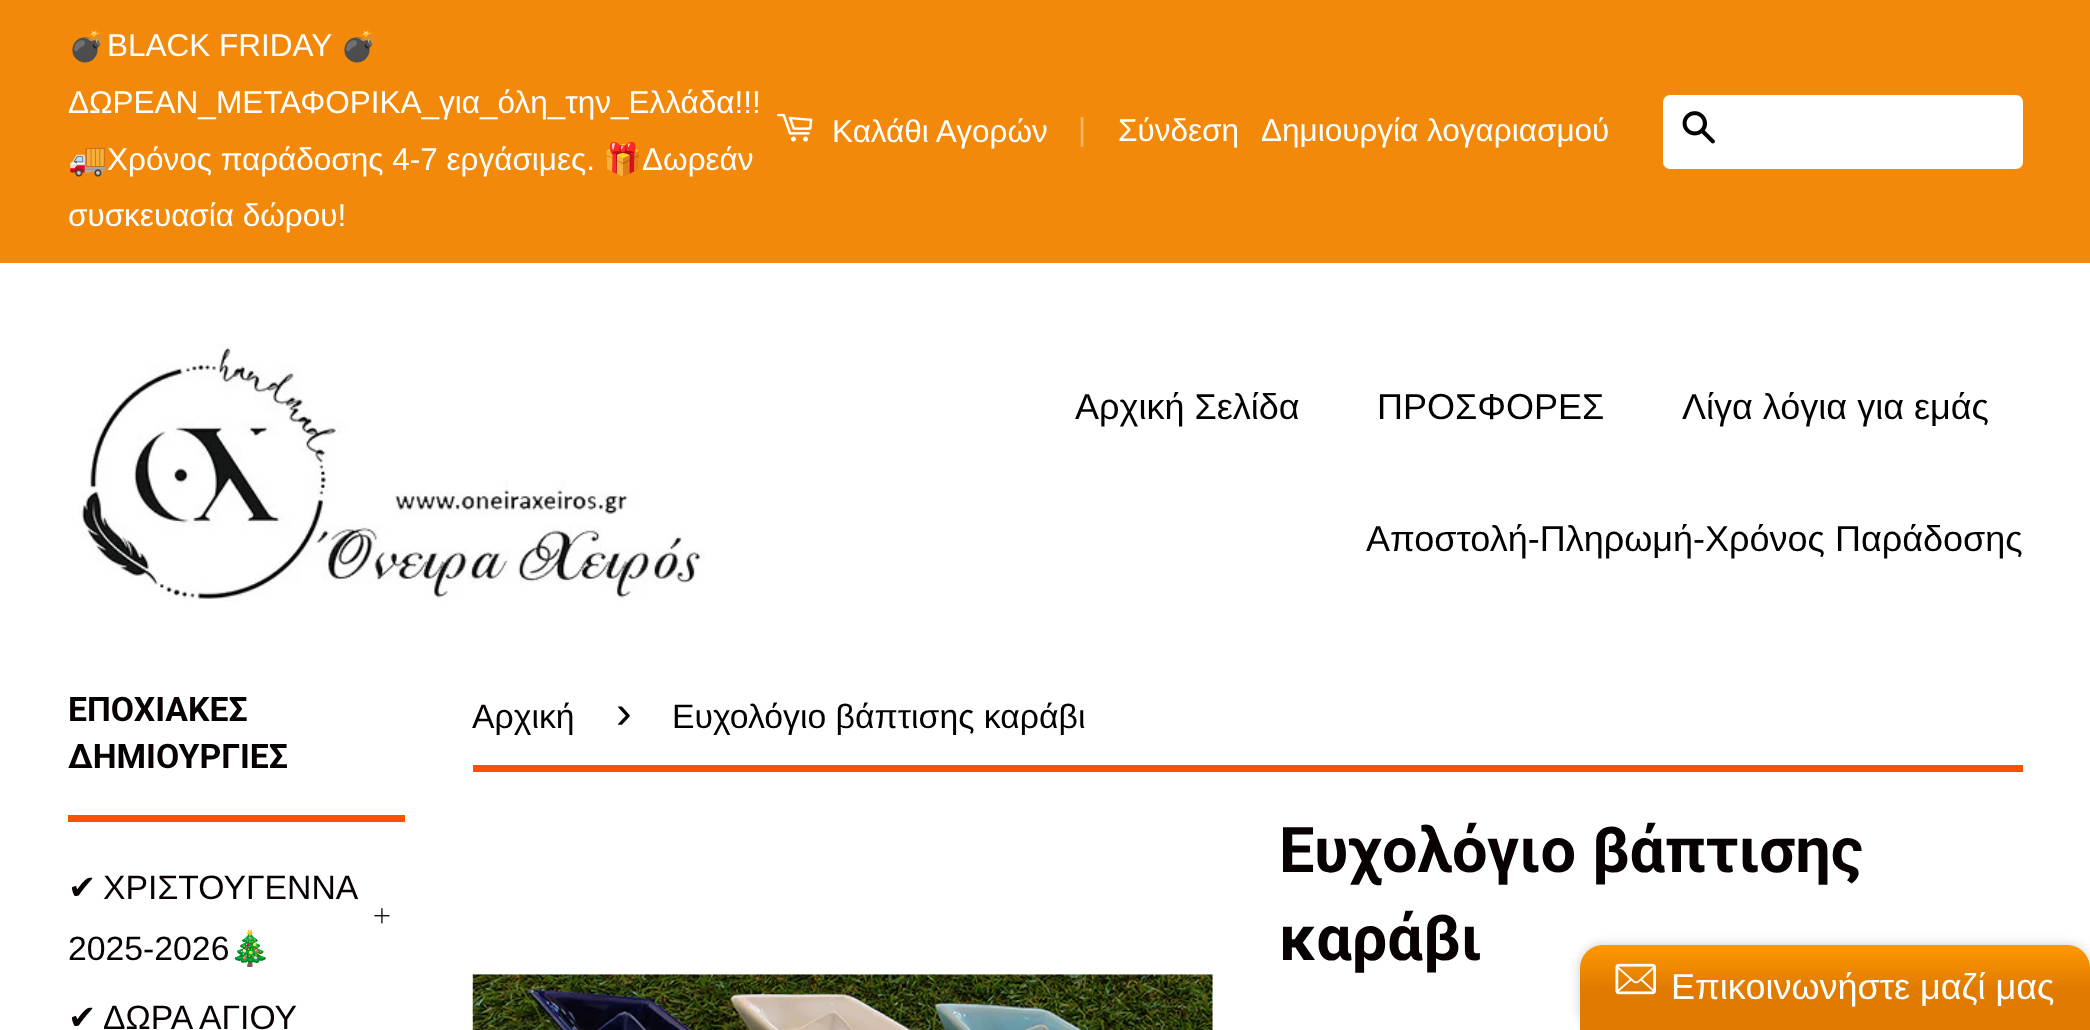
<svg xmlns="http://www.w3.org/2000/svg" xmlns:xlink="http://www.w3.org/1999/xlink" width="2090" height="1030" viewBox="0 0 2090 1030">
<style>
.cls-1{font:31.5px Noto Color Emoji;fill:#ffffff}
.cls-2{font:31.5px Liberation Sans;fill:#ffffff}
.cls-3{font:31.5px Liberation Sans;fill:#f8b86c}
.cls-4{font:36px Liberation Sans;fill:#010101}
.cls-5{font:bold 33.75px Roboto;fill:#080101}
.cls-6{font:33.75px DejaVu Sans;fill:#080101}
.cls-7{font:33.75px Liberation Sans;fill:#080101}
.cls-8{font:33.75px Noto Color Emoji;fill:#080101}
.cls-9{font:47px Liberation Sans;fill:#010101}
.cls-10{font:33.75px Liberation Sans;fill:#010101}
.cls-11{font:bold 63px Roboto;fill:#080101}
.cls-12{font:36px Liberation Sans;fill:#ffffff}
</style>
<defs>
<linearGradient id="g1" gradientUnits="userSpaceOnUse" x1="1835" y1="945" x2="1835" y2="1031"><stop offset="0" stop-color="#ff9900"/><stop offset="0.5" stop-color="#e17b00"/></linearGradient>
</defs>
<rect width="100%" height="100%" fill="#ffffff"/>
<rect fill="#f3890a" x="0" y="0" width="2090" height="263"/>
<image xlink:href="image0.png" x="777" y="113" width="36" height="29"/>
<rect fill="#ffffff" x="1663" y="95" width="360" height="74" rx="7"/>
<image xlink:href="image1.png" x="1682" y="111" width="33" height="33"/>
<image xlink:href="image2.png" x="79" y="344" width="626" height="257"/>
<rect fill="#fc5103" x="68" y="815" width="337" height="7"/>
<image xlink:href="image3.png" x="374" y="908" width="16" height="16"/>
<rect fill="#fc5103" x="473" y="765" width="1550" height="7"/>
<image xlink:href="image4.png" x="472" y="974" width="741" height="56"/>
<rect fill="#000000" fill-opacity="0.2" filter="blur(5.5px)" x="1580" y="945" width="510" height="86" rx="23"/>
<path fill="url(#g1)" d="M1603 945H2067C2079.5 945 2090 955.5 2090 968V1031H1580V968C1580 955.5 1590.5 945 1603 945Z"/>
<image xlink:href="image5.png" x="1615" y="963" width="41" height="32"/>
<text class="cls-1" x="68" y="56">💣</text>
<text class="cls-2" x="107" y="56">BLACK FRIDAY</text>
<text class="cls-1" x="340" y="56">💣</text>
<text class="cls-2" x="68" y="113">ΔΩΡΕΑΝ_ΜΕΤΑΦΟΡΙΚΑ_για_όλη_την_Ελλάδα!!!</text>
<text class="cls-1" x="68" y="170">🚚</text>
<text class="cls-2" x="107" y="170">Χρόνος παράδοσης 4-7 εργάσιμες.</text>
<text class="cls-1" x="603" y="170">🎁</text>
<text class="cls-2" x="642" y="170">Δωρεάν</text>
<text class="cls-2" x="68" y="226">συσκευασία δώρου!</text>
<text class="cls-2" x="832" y="142">Καλάθι Αγορών</text>
<text class="cls-3" x="1078" y="140">|</text>
<text class="cls-2" x="1118" y="141">Σύνδεση</text>
<text class="cls-2" x="1261" y="141">Δημιουργία λογαριασμού</text>
<text class="cls-4" x="1075" y="419">Αρχική Σελίδα</text>
<text class="cls-4" x="1377" y="419">ΠΡΟΣΦΟΡΕΣ</text>
<text class="cls-4" x="1682" y="419">Λίγα λόγια για εμάς</text>
<text class="cls-4" x="1366" y="551">Αποστολή-Πληρωμή-Χρόνος Παράδοσης</text>
<text class="cls-5"><tspan x="68" y="721">ΕΠΟΧΙΑΚΕΣ</tspan><tspan x="68" y="768">ΔΗΜΙΟΥΡΓΙΕΣ</tspan></text>
<text class="cls-6" x="68" y="899">✔</text>
<text class="cls-7" x="103" y="899">ΧΡΙΣΤΟΥΓΕΝΝΑ</text>
<text class="cls-7" x="68" y="960">2025-2026</text>
<text class="cls-8" x="229" y="960">🎄</text>
<text class="cls-6" x="68" y="1029">✔</text>
<text class="cls-7" x="103" y="1029">ΔΩΡΑ ΑΓΙΟΥ</text>
<text class="cls-7" x="472" y="728">Αρχική</text>
<text class="cls-9" x="616" y="728">›</text>
<text class="cls-10" x="672" y="728">Ευχολόγιο βάπτισης καράβι</text>
<text class="cls-11"><tspan x="1279" y="872">Ευχολόγιο βάπτισης</tspan><tspan x="1279" y="960">καράβι</tspan></text>
<text class="cls-12" x="1671" y="999">Επικοινωνήστε μαζί μας</text>
</svg>
